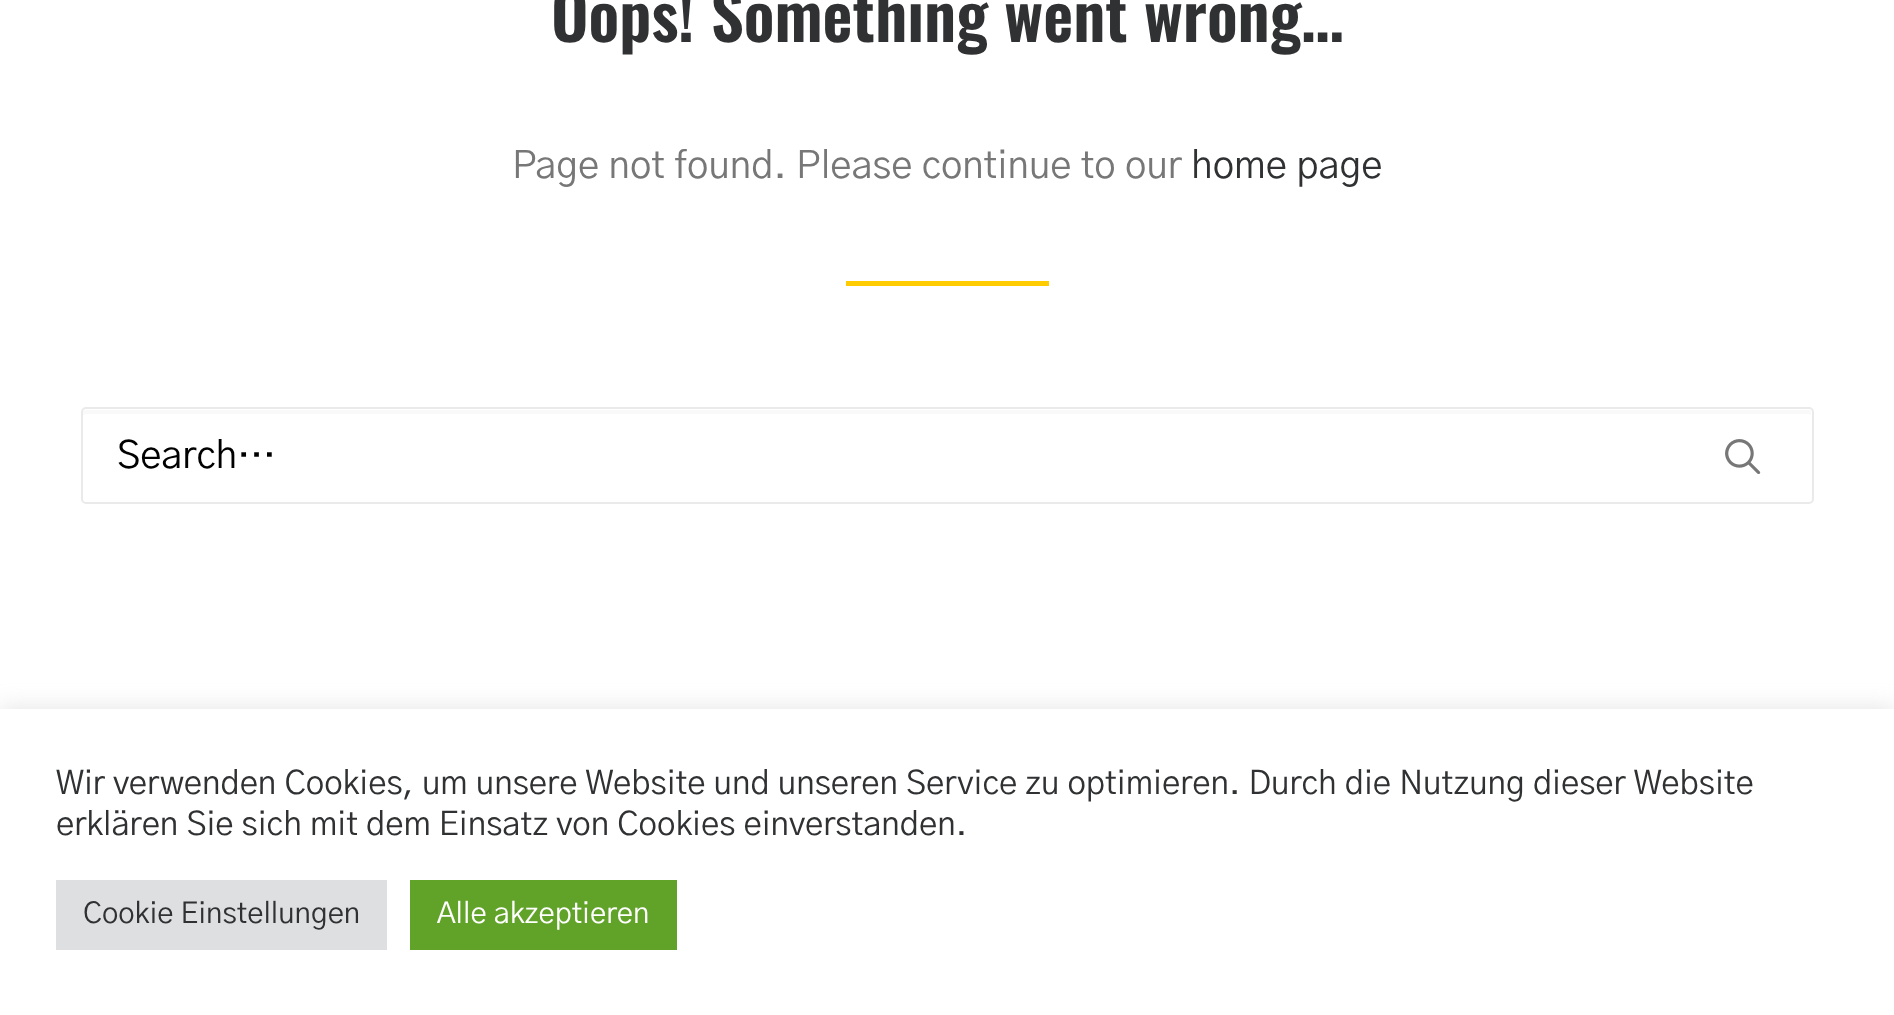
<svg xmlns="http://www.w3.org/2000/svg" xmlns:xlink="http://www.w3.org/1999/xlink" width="1894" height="1015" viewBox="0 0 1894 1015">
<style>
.cls-1{font:600 65.25px Oswald;fill:#303133}
.cls-2{font:38.25px 'Gothic A1';fill:#777777}
.cls-3{font:38.25px 'Gothic A1';fill:#303133}
.cls-4{font:38.25px 'Gothic A1';fill:#000000}
.cls-5{font:33px 'Gothic A1';fill:#303133}
.cls-6{font:29.25px 'Gothic A1';fill:#303133}
.cls-7{font:29.25px 'Gothic A1';fill:#ffffff}
</style>
<rect width="100%" height="100%" fill="#ffffff"/>
<rect fill="#fecc00" x="846" y="281" width="203" height="5"/>
<path fill="#f9f9f9" d="M86 414H1809C1810 414 1811 415 1811 416V412C1811 411 1810 410 1809 410H85C84 410 83 411 83 412V416C83 415 84 414 86 414Z"/>
<rect fill="none" stroke="#eaeaea" stroke-width="2" x="82" y="408" width="1731" height="95" rx="4"/>
<image xlink:href="image0.png" x="1725" y="439" width="36" height="35"/>
<rect fill="#acabab" fill-opacity="0.3" filter="blur(11px)" x="0" y="707" width="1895" height="308"/>
<rect fill="#ffffff" x="0" y="709" width="1894" height="306"/>
<rect fill="#dedfe0" x="56" y="880" width="331" height="70"/>
<rect fill="#61a229" x="410" y="880" width="267" height="70"/>
<text class="cls-1" x="551" y="42">Oops! Something went wrong…</text>
<text class="cls-2" x="512" y="178">Page not found. Please continue to our</text>
<text class="cls-3" x="1191" y="178">home page</text>
<text class="cls-4" x="117" y="468">Search…</text>
<text class="cls-5"><tspan x="56" y="794">Wir verwenden Cookies, um unsere Website und unseren Service zu optimieren. Durch die Nutzung dieser Website</tspan><tspan x="56" y="835">erklären Sie sich mit dem Einsatz von Cookies einverstanden.</tspan></text>
<text class="cls-6" x="83" y="923">Cookie Einstellungen</text>
<text class="cls-7" x="437" y="923">Alle akzeptieren</text>
</svg>
